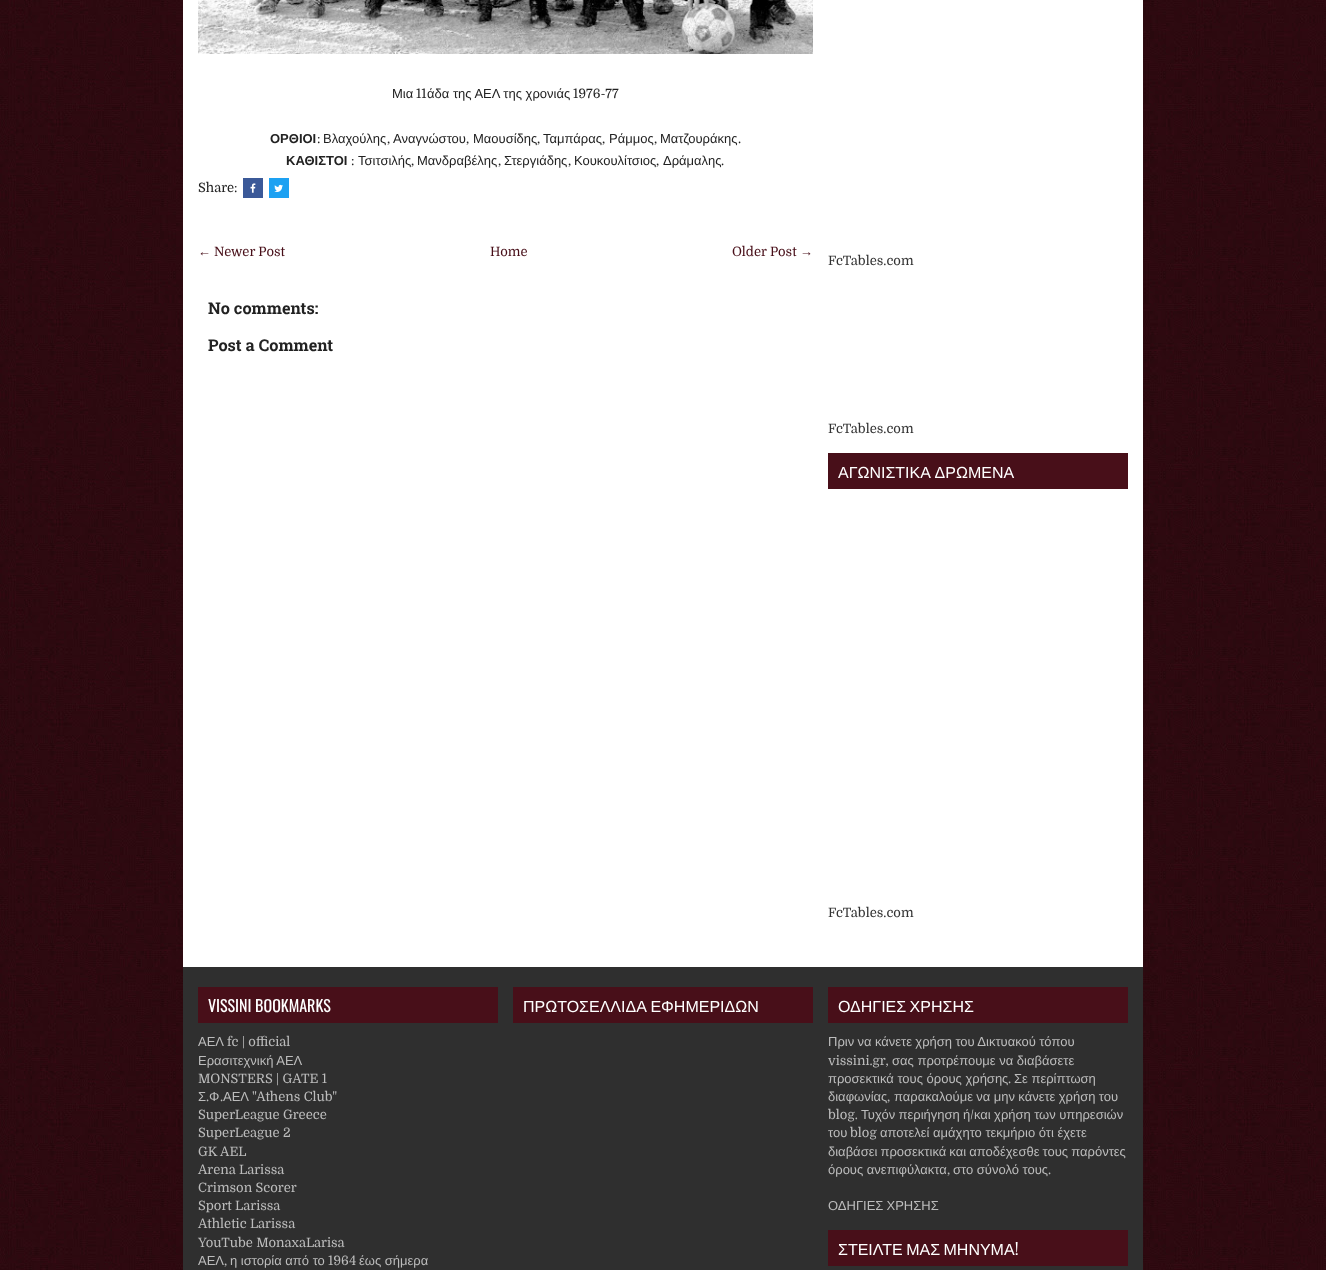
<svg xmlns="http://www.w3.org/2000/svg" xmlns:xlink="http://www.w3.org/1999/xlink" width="1326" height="1270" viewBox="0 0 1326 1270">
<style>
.cls-1{font:13px Liberation Sans;fill:#222222}
.cls-2{font:13px Domine;fill:#222222}
.cls-3{font:bold 13px Liberation Sans;fill:#222222}
.cls-4{font:13px Liberation Sans;fill:#480f19}
.cls-5{font:13px Domine;fill:#480f19}
.cls-6{font:bold 16.25px Roboto Slab;fill:#222222}
.cls-7{font:13px Domine;fill:#333333}
.cls-8{font:16px Liberation Sans;fill:#ffffff}
.cls-9{font:16px Oswald;fill:#ffffff}
.cls-10{font:13px Liberation Sans;fill:#bcbcbc}
.cls-11{font:13px Domine;fill:#bcbcbc}
</style>
<rect width="100%" height="100%" fill="#ffffff"/>
<image xlink:href="image0.png" x="0" y="0" width="1326" height="1270"/>
<rect fill="#ffffff" x="183" y="0" width="960" height="967"/>
<image xlink:href="image1.png" x="198" y="0" width="615" height="54"/>
<rect fill="#3b5998" x="243" y="178" width="20" height="20"/>
<image xlink:href="image2.png" x="250" y="183" width="6" height="10"/>
<rect fill="#1da1f2" x="269" y="178" width="20" height="20"/>
<image xlink:href="image3.png" x="274" y="184" width="9" height="8"/>
<rect fill="#480f19" x="828" y="453" width="300" height="36"/>
<rect fill="#2f2f2f" x="183" y="967" width="960" height="303"/>
<rect fill="#480f19" x="198" y="987" width="300" height="36"/>
<rect fill="#480f19" x="513" y="987" width="300" height="36"/>
<rect fill="#480f19" x="828" y="987" width="300" height="36"/>
<rect fill="#480f19" x="828" y="1230" width="300" height="36"/>
<text class="cls-1" x="392" y="98">Μια</text>
<text class="cls-2" x="416" y="98">11</text>
<text class="cls-1" x="427" y="98">άδα της ΑΕΛ της χρονιάς</text>
<text class="cls-2" x="573" y="98">1976-77</text>
<text class="cls-3" x="270" y="143">ΟΡΘΙΟΙ</text>
<text class="cls-2" x="317" y="143">:</text>
<text class="cls-1" x="323" y="143">Βλαχούλης</text>
<text class="cls-2" x="387" y="143">,</text>
<text class="cls-1" x="393" y="143">Αναγνώστου</text>
<text class="cls-2" x="466" y="143">,</text>
<text class="cls-1" x="473" y="143">Μαουσίδης</text>
<text class="cls-2" x="537" y="143">,</text>
<text class="cls-1" x="543" y="143">Ταμπάρας</text>
<text class="cls-2" x="602" y="143">,</text>
<text class="cls-1" x="609" y="143">Ράμμος</text>
<text class="cls-2" x="654" y="143">,</text>
<text class="cls-1" x="660" y="143">Ματζουράκης</text>
<text class="cls-2" x="738" y="143">.</text>
<text class="cls-3" x="286" y="165">ΚΑΘΙΣΤΟΙ</text>
<text class="cls-2" x="351" y="165">:</text>
<text class="cls-1" x="358" y="165">Τσιτσιλής</text>
<text class="cls-2" x="411" y="165">,</text>
<text class="cls-1" x="417" y="165">Μανδραβέλης</text>
<text class="cls-2" x="498" y="165">,</text>
<text class="cls-1" x="504" y="165">Στεργιάδης</text>
<text class="cls-2" x="568" y="165">,</text>
<text class="cls-1" x="574" y="165">Κουκουλίτσιος</text>
<text class="cls-2" x="656" y="165">,</text>
<text class="cls-1" x="663" y="165">Δράμαλης</text>
<text class="cls-2" x="721" y="165">.</text>
<text class="cls-2" x="198" y="192">Share:</text>
<text class="cls-4" x="198" y="256">←</text>
<text class="cls-5" x="214" y="256">Newer Post</text>
<text class="cls-5" x="490" y="256">Home</text>
<text class="cls-5" x="732" y="256">Older Post</text>
<text class="cls-4" x="800" y="256">→</text>
<text class="cls-6" x="208" y="314">No comments:</text>
<text class="cls-6" x="208" y="351">Post a Comment</text>
<text class="cls-7" x="828" y="265">FcTables.com</text>
<text class="cls-7" x="828" y="433">FcTables.com</text>
<text class="cls-8" x="838" y="478" word-spacing="1">ΑΓΩΝΙΣΤΙΚΑ ΔΡΩΜΕΝΑ</text>
<text class="cls-7" x="828" y="917">FcTables.com</text>
<text class="cls-9" x="208" y="1012">VISSINI BOOKMARKS</text>
<text class="cls-10" x="198" y="1046">ΑΕΛ</text>
<text class="cls-11" x="227" y="1046">fc | official</text>
<text class="cls-10" x="198" y="1065">Ερασιτεχνική ΑΕΛ</text>
<text class="cls-11" x="198" y="1083">MONSTERS | GATE 1</text>
<text class="cls-10" x="198" y="1101">Σ</text>
<text class="cls-11" x="206" y="1101">.</text>
<text class="cls-10" x="209" y="1101">Φ</text>
<text class="cls-11" x="220" y="1101">.</text>
<text class="cls-10" x="223" y="1101">ΑΕΛ</text>
<text class="cls-11" x="252" y="1101">"Athens Club"</text>
<text class="cls-11"><tspan x="198" y="1119">SuperLeague Greece</tspan><tspan x="198" y="1137">SuperLeague 2</tspan><tspan x="198" y="1156">GK AEL</tspan><tspan x="198" y="1174">Arena Larissa</tspan><tspan x="198" y="1192">Crimson Scorer</tspan><tspan x="198" y="1210">Sport Larissa</tspan><tspan x="198" y="1228">Athletic Larissa</tspan><tspan x="198" y="1247">YouTube MonaxaLarisa</tspan></text>
<text class="cls-10" x="198" y="1265">ΑΕΛ</text>
<text class="cls-11" x="224" y="1265">,</text>
<text class="cls-10" x="230" y="1265">η ιστορία από το</text>
<text class="cls-11" x="328" y="1265">1964</text>
<text class="cls-10" x="359" y="1265">έως σήμερα</text>
<text class="cls-8" x="523" y="1012">ΠΡΩΤΟΣΕΛΛΙΔΑ ΕΦΗΜΕΡΙΔΩΝ</text>
<text class="cls-8" x="838" y="1012" word-spacing="-1">ΟΔΗΓΙΕΣ ΧΡΗΣΗΣ</text>
<text class="cls-10" x="828" y="1046" word-spacing="-0.25">Πριν να κάνετε χρήση του Δικτυακού τόπου</text>
<text class="cls-11" x="828" y="1065">vissini.gr,</text>
<text class="cls-10" x="892" y="1065">σας προτρέπουμε να διαβάσετε</text>
<text class="cls-10" x="828" y="1083">προσεκτικά τους όρους χρήσης</text>
<text class="cls-11" x="1008" y="1083">.</text>
<text class="cls-10" x="1014" y="1083">Σε περίπτωση</text>
<text class="cls-10" x="828" y="1101">διαφωνίας</text>
<text class="cls-11" x="887" y="1101">,</text>
<text class="cls-10" x="894" y="1101" word-spacing="-0.25">παρακαλούμε να μην κάνετε χρήση του</text>
<text class="cls-11" x="828" y="1119">blog.</text>
<text class="cls-10" x="861" y="1119" word-spacing="-0.25">Τυχόν περιήγηση ή</text>
<text class="cls-11" x="970" y="1119">/</text>
<text class="cls-10" x="974" y="1119" word-spacing="-0.25">και χρήση των υπηρεσιών</text>
<text class="cls-10" x="828" y="1137">του</text>
<text class="cls-11" x="850" y="1137">blog</text>
<text class="cls-10" x="880" y="1137">αποτελεί αμάχητο τεκμήριο ότι έχετε</text>
<text class="cls-10"><tspan x="828" y="1156" word-spacing="-0.5">διαβάσει προσεκτικά και αποδέχεσθε τους παρόντες</tspan><tspan x="828" y="1174">όρους ανεπιφύλακτα</tspan></text>
<text class="cls-11" x="947" y="1174">,</text>
<text class="cls-10" x="953" y="1174">στο σύνολό τους</text>
<text class="cls-11" x="1048" y="1174">.</text>
<text class="cls-10" x="828" y="1210" word-spacing="-0.5">ΟΔΗΓΙΕΣ ΧΡΗΣΗΣ</text>
<text class="cls-8" x="838" y="1255" word-spacing="-1">ΣΤΕΙΛΤΕ ΜΑΣ ΜΗΝΥΜΑ</text>
<text class="cls-9" x="1015" y="1255">!</text>
</svg>
